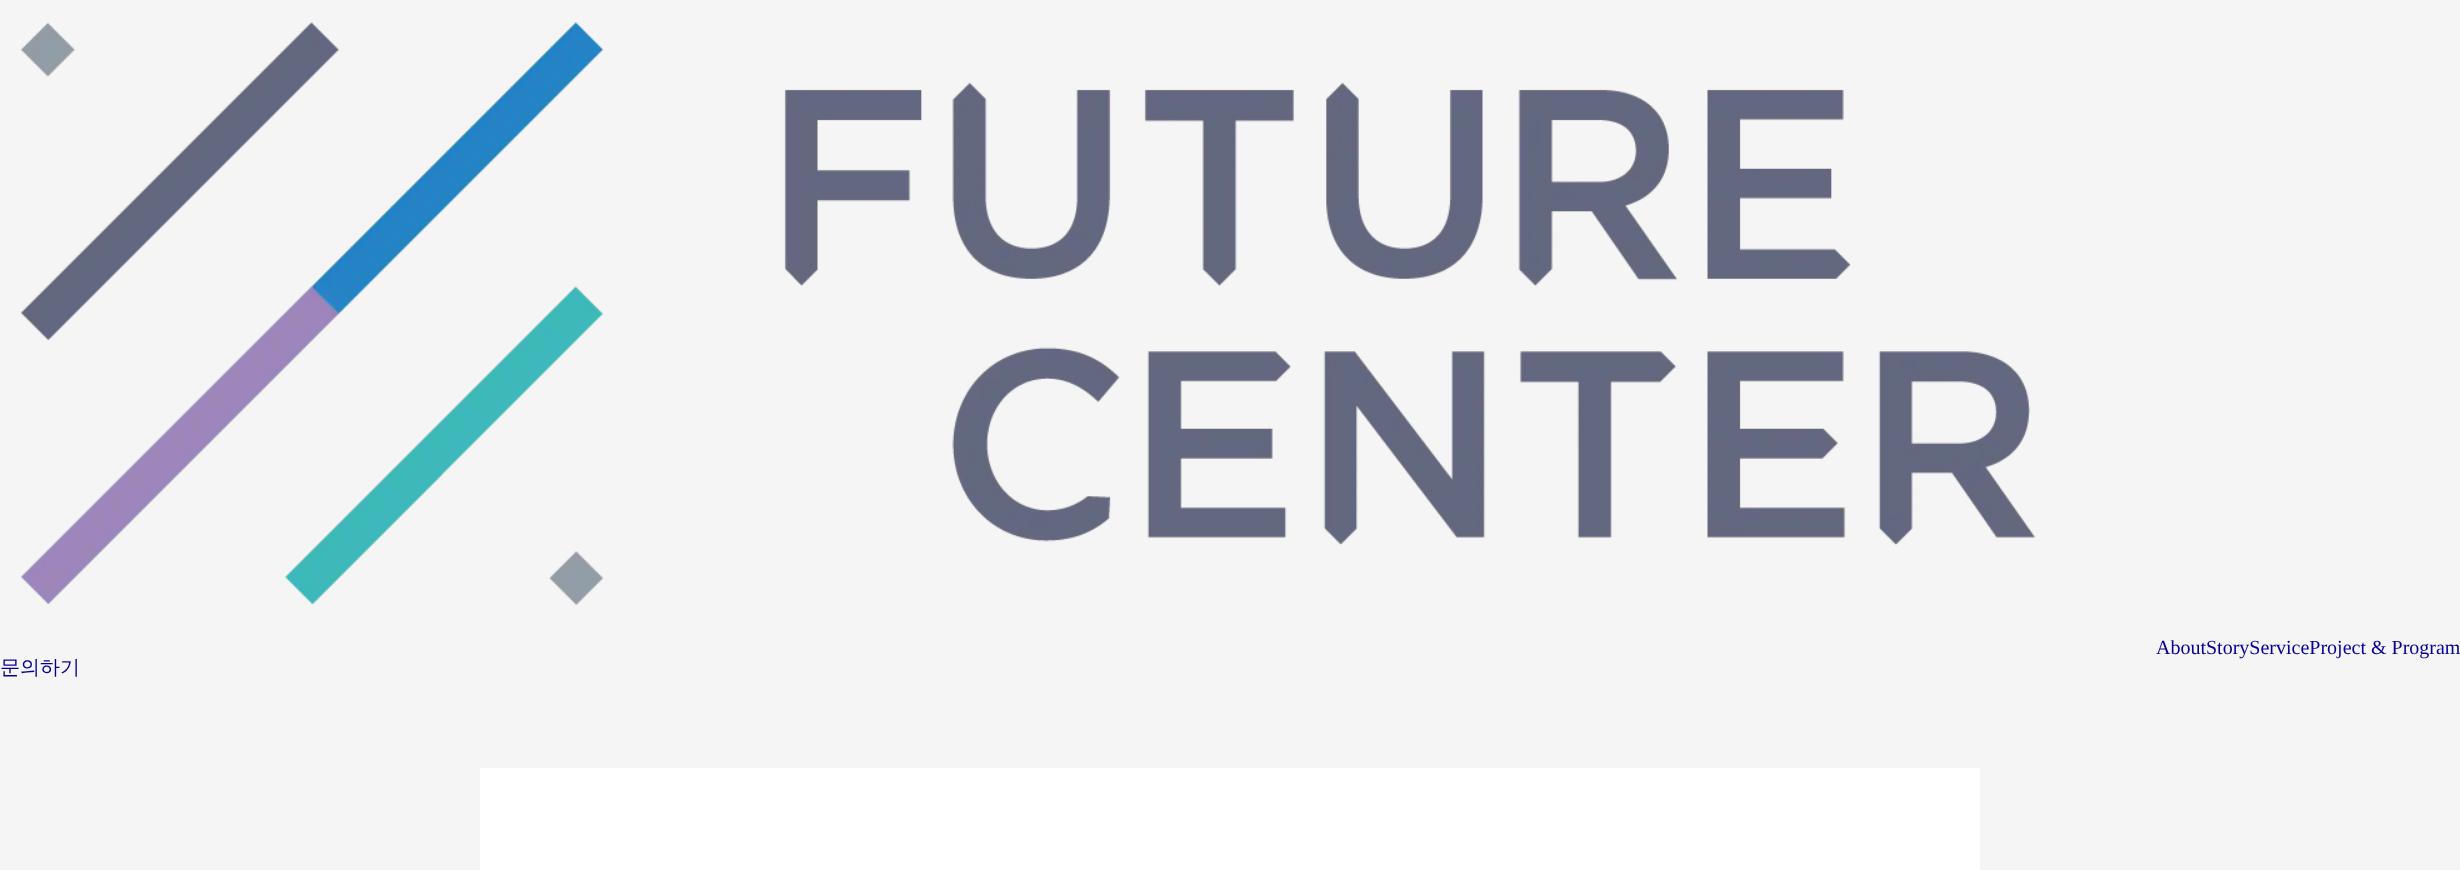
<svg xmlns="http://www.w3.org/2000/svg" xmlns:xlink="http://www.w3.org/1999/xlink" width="2460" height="870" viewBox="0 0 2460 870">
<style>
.cls-1{font:20px Liberation Serif;fill:#060097}
.cls-2{font:500 20px WenQuanYi Zen Hei;fill:#060097}
</style>
<rect width="100%" height="100%" fill="#f5f5f5"/>
<image xlink:href="image0.png" x="21" y="22" width="2015" height="584"/>
<rect fill="#ffffff" x="480" y="768" width="1500" height="102"/>
<text class="cls-1" x="2156" y="654">AboutStoryServiceProject &amp; Program</text>
<text class="cls-2" x="0" y="674">문의하기</text>
</svg>
